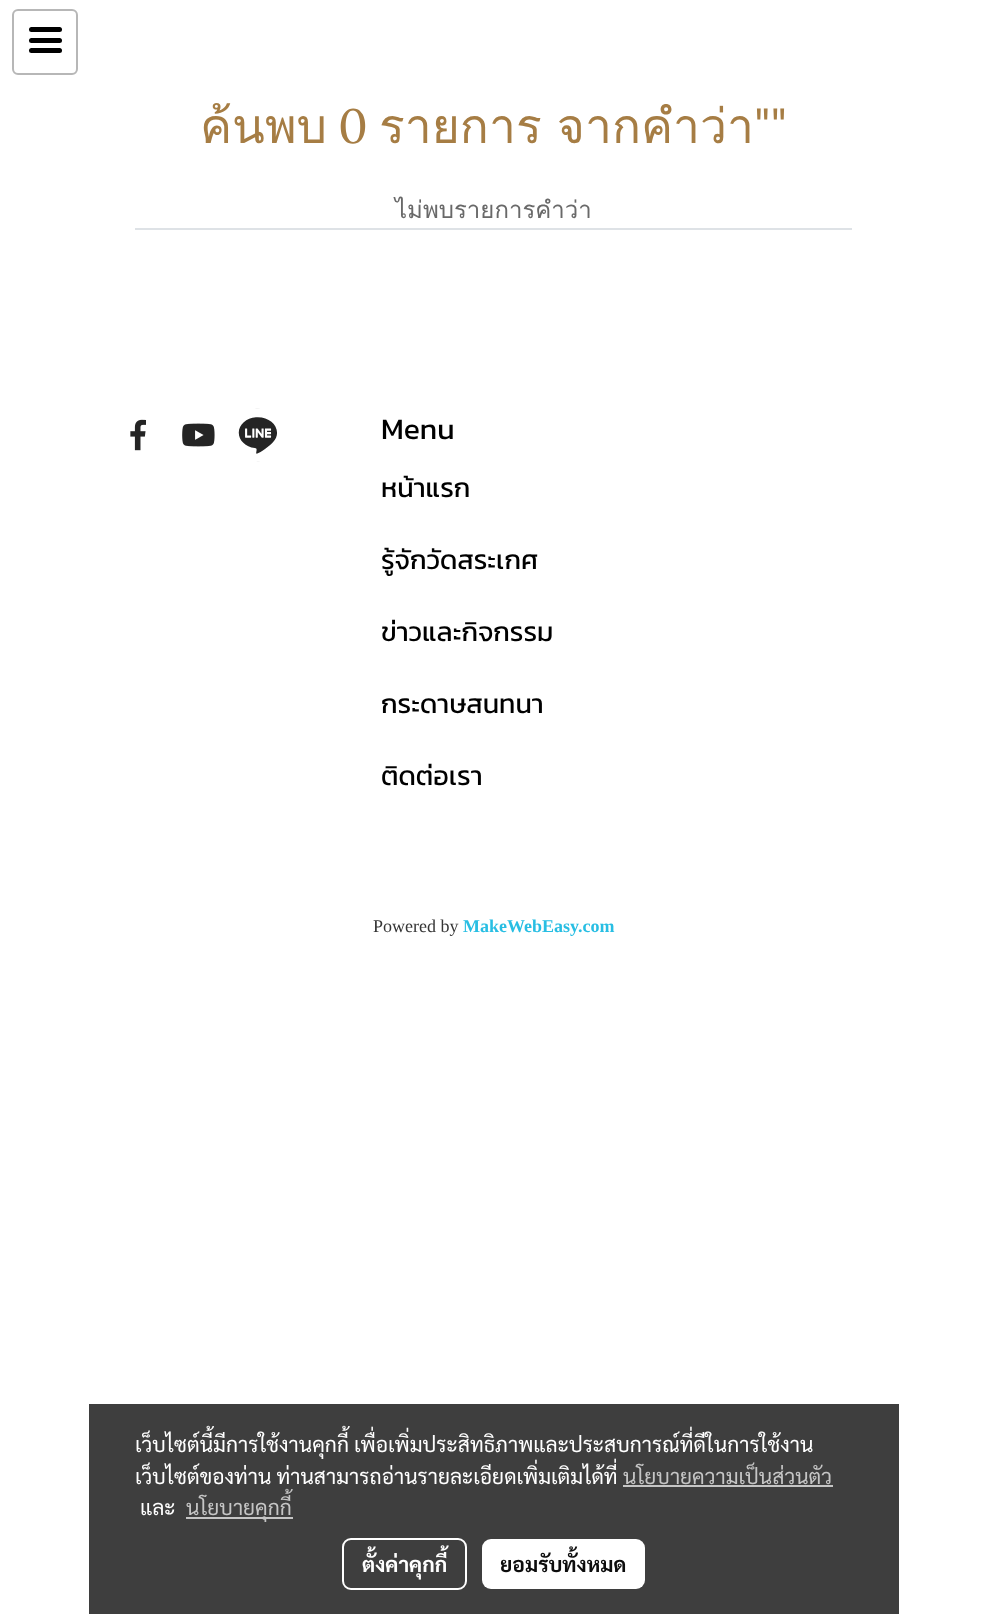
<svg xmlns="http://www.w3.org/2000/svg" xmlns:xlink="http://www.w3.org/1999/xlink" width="987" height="1614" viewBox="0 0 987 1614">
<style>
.cls-1{font:48px Loma;fill:#a67d44}
.cls-2{font:48px Lora;fill:#a67d44}
.cls-3{font:24px Loma;fill:#696969}
.cls-4{font:30px Kanit;fill:#000000}
.cls-5{font:27px Kanit;fill:#000000}
.cls-6{font:18px Liberation Serif;fill:#353535}
.cls-7{font:bold 18px Liberation Serif;fill:#28bee3}
.cls-8{font:21px Sarabun;fill:#ffffff}
.cls-9{font:21px Sarabun;fill:#c5c5c5}
.cls-10{font:bold 21px Sarabun;fill:#ffffff}
.cls-11{font:bold 21px Sarabun;fill:#0d0d0d}
</style>
<rect width="100%" height="100%" fill="#ffffff"/>
<rect fill="none" stroke="#b7b7b7" stroke-width="2" x="13" y="10" width="64" height="64" rx="5"/>
<rect fill="#000000" x="29" y="38" width="33" height="5" rx="2.5"/>
<rect fill="#000000" x="29" y="27" width="33" height="5" rx="2.5"/>
<rect fill="#000000" x="29" y="48" width="33" height="5" rx="2.5"/>
<rect fill="#dee2e6" x="135" y="228" width="717" height="2"/>
<image xlink:href="image0.png" x="130" y="419" width="16" height="32"/>
<image xlink:href="image1.png" x="182" y="423" width="33" height="24"/>
<image xlink:href="image2.png" x="238" y="408" width="39" height="54"/>
<rect fill="#3e3e3e" x="89" y="1404" width="810" height="210"/>
<rect fill="#c5c5c5" x="623" y="1485" width="210" height="2"/>
<rect fill="#c5c5c5" x="186" y="1517" width="107" height="2"/>
<rect fill="none" stroke="#ffffff" stroke-width="2" x="343" y="1539" width="123" height="50" rx="8"/>
<rect fill="#ffffff" x="482" y="1539" width="163" height="50" rx="9"/>
<text class="cls-1" x="200" y="143">ค้นพบ</text>
<text class="cls-2" x="338" y="143">0</text>
<text class="cls-1" x="379" y="143" word-spacing="-1">รายการ จากคำว่า</text>
<text class="cls-2" x="754" y="143">""</text>
<text class="cls-3" x="395" y="218">ไม่พบรายการคำว่า</text>
<text class="cls-4" x="381" y="439">Menu</text>
<text class="cls-5" x="381" y="497">หน้าแรก</text>
<text class="cls-5" x="381" y="569">รู้จักวัดสระเกศ</text>
<text class="cls-5" x="381" y="641">ข่าวและกิจกรรม</text>
<text class="cls-5" x="381" y="713">กระดาษสนทนา</text>
<text class="cls-5" x="381" y="785">ติดต่อเรา</text>
<text class="cls-6" x="373" y="932">Powered by</text>
<text class="cls-7" x="463" y="932">MakeWebEasy.com</text>
<text class="cls-8"><tspan x="135" y="1452">เว็บไซต์นี้มีการใช้งานคุกกี้ เพื่อเพิ่มประสิทธิภาพและประสบการณ์ที่ดีในการใช้งาน</tspan><tspan x="135" y="1484">เว็บไซต์ของท่าน ท่านสามารถอ่านรายละเอียดเพิ่มเติมได้ที่</tspan></text>
<text class="cls-9" x="623" y="1484">นโยบายความเป็นส่วนตัว</text>
<text class="cls-8" x="140" y="1515">และ</text>
<text class="cls-9" x="186" y="1515">นโยบายคุกกี้</text>
<text class="cls-10" x="362" y="1572">ตั้งค่าคุกกี้</text>
<text class="cls-11" x="500" y="1572">ยอมรับทั้งหมด</text>
</svg>
